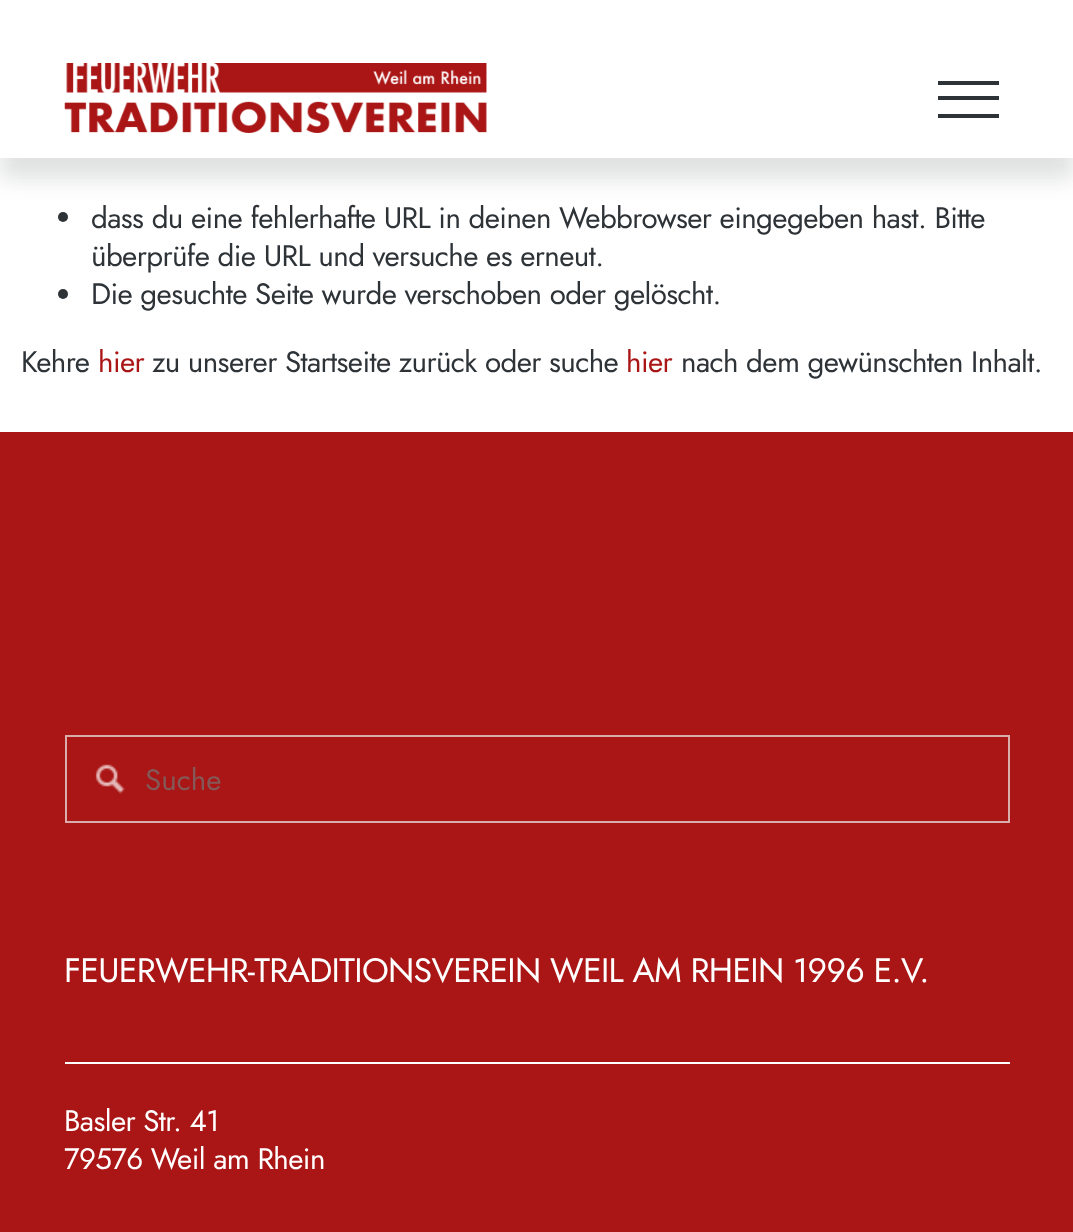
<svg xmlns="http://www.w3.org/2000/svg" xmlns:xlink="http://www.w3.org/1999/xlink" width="1073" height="1232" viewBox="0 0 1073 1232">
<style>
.cls-1{font:29.5px Jost;letter-spacing:-0.6px;fill:#2e3338}
.cls-2{font:29.5px Jost;letter-spacing:-0.6px;fill:#aa1515}
.cls-3{font:29.5px Jost;fill:#855858}
.cls-4{font:33.9px Jost;letter-spacing:-0.68px;fill:#ffffff}
.cls-5{font:29.5px Jost;letter-spacing:-0.6px;fill:#ffffff}
</style>
<defs>
<clipPath id="clip1"><path d="M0 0H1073V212H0ZM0 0H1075V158H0Z" clip-rule="evenodd"/></clipPath>
</defs>
<rect width="100%" height="100%" fill="#ffffff"/>
<g clip-path="url(#clip1)">
<rect fill="#2e3338" fill-opacity="0.15" filter="blur(10.5px)" x="0" y="21" width="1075" height="158"/>
</g>
<image xlink:href="image0.png" x="64" y="63" width="423" height="70"/>
<rect fill="#2e3338" x="938" y="81" width="61" height="4"/>
<rect fill="#2e3338" x="938" y="96" width="61" height="4"/>
<rect fill="#2e3338" x="938" y="114" width="61" height="4"/>
<rect fill="#ffffff" fill-opacity="0.75" x="0" y="157" width="1073" height="1"/>
<circle fill="#2e3338" cx="63" cy="217" r="5"/>
<circle fill="#2e3338" cx="63" cy="294" r="5"/>
<rect fill="#aa1515" x="0" y="432" width="1073" height="800"/>
<image xlink:href="image1.png" x="95" y="764" width="30" height="30"/>
<rect fill="none" stroke="#daadad" stroke-width="2" x="66" y="736" width="943" height="86"/>
<rect fill="#ffffff" x="65" y="1062" width="945" height="2"/>
<text class="cls-1"><tspan x="91" y="228">dass du eine fehlerhafte URL in deinen Webbrowser eingegeben hast. Bitte</tspan><tspan x="91" y="266">überprüfe die URL und versuche es erneut.</tspan><tspan x="91" y="304">Die gesuchte Seite wurde verschoben oder gelöscht.</tspan></text>
<text class="cls-1" x="21" y="372">Kehre</text>
<text class="cls-2" x="98" y="372">hier</text>
<text class="cls-1" x="152" y="372">zu unserer Startseite zurück oder suche</text>
<text class="cls-2" x="626" y="372">hier</text>
<text class="cls-1" x="681" y="372">nach dem gewünschten Inhalt.</text>
<text class="cls-3" x="145" y="790">Suche</text>
<text class="cls-4" x="64" y="982">FEUERWEHR-TRADITIONSVEREIN WEIL AM RHEIN 1996 E.V.</text>
<text class="cls-5"><tspan x="64" y="1131">Basler Str. 41</tspan><tspan x="64" y="1169">79576 Weil am Rhein</tspan></text>
</svg>
